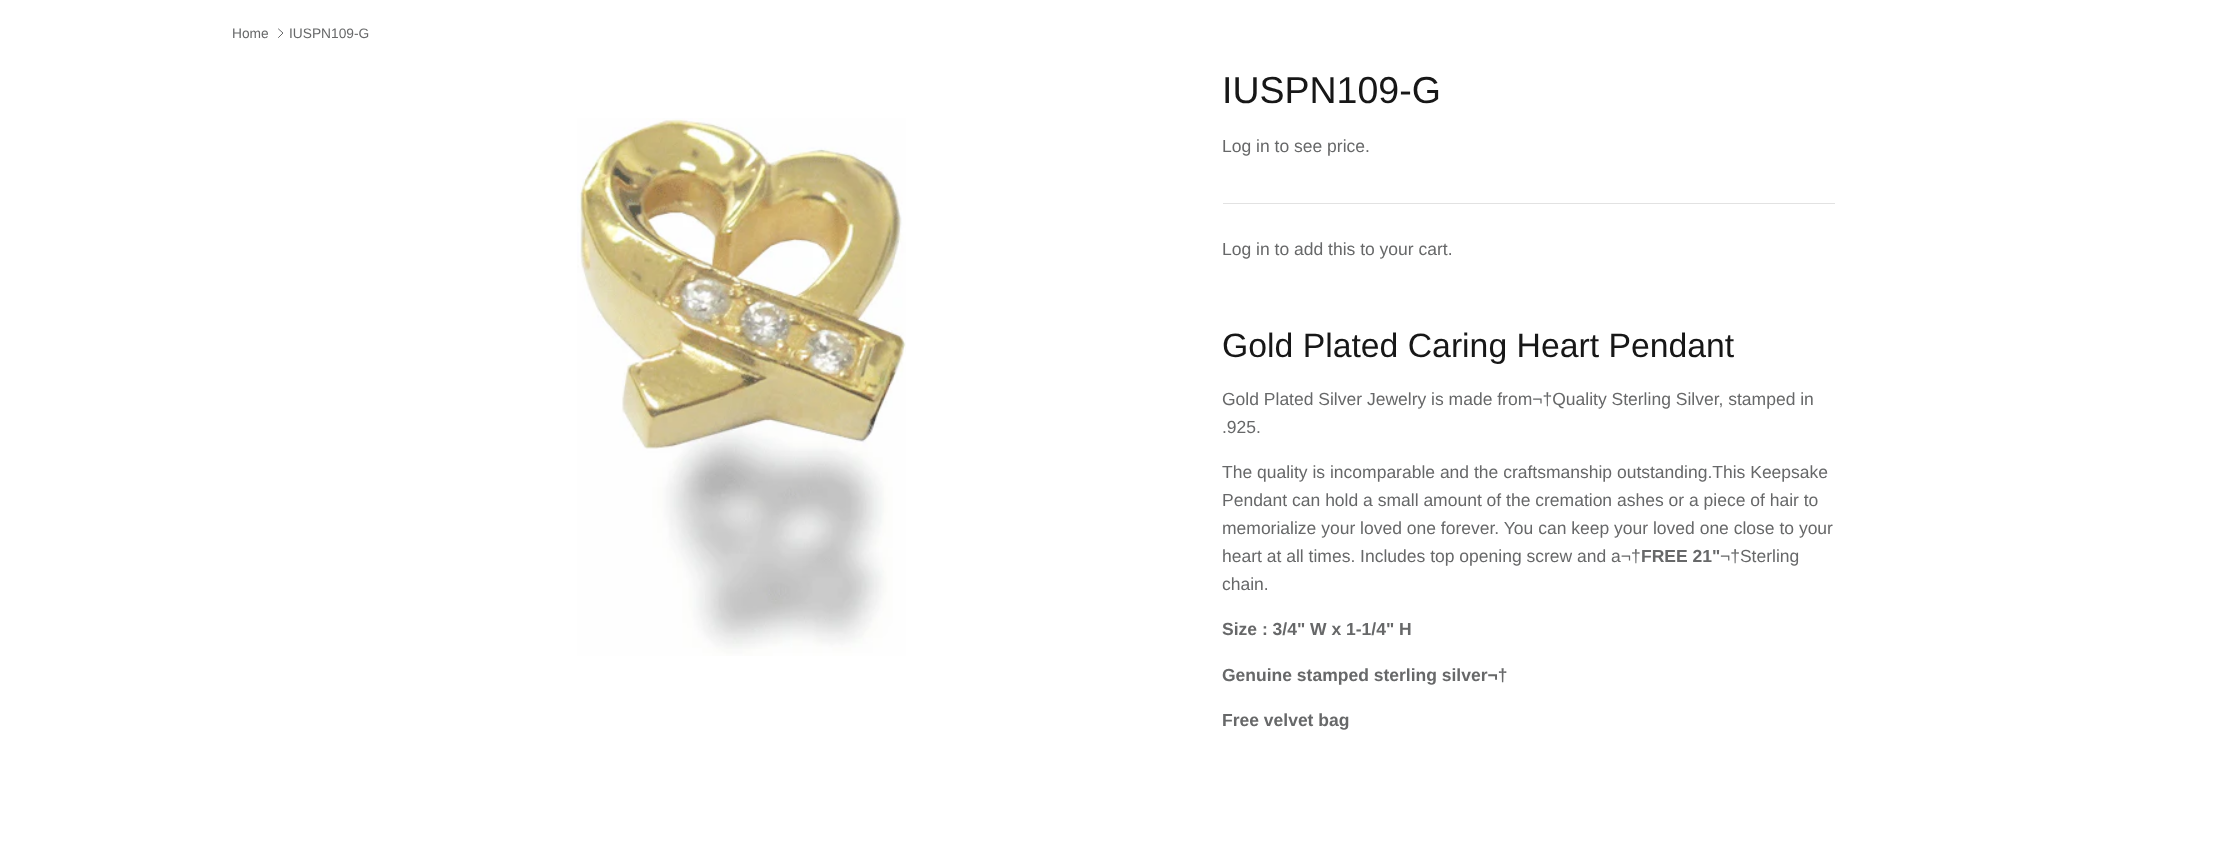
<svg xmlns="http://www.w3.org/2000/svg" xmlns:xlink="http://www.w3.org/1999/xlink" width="2213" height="860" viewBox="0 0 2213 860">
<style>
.cls-1{font:13.75px Arimo;fill:#676869}
.cls-2{font:37.5px Arimo;fill:#171717}
.cls-3{font:17.5px Arimo;fill:#676869}
.cls-4{font:33.75px Arimo;fill:#171717}
.cls-5{font:bold 17.5px Arimo;fill:#676869}
</style>
<rect width="100%" height="100%" fill="#ffffff"/>
<path fill="none" stroke="#676869" stroke-linecap="round" stroke-linejoin="round" d="M278.5 37.5L283 33L278.5 29"/>
<image xlink:href="image0.png" x="577" y="118" width="329" height="538"/>
<rect fill="#e2e2e2" x="1223" y="203" width="612" height="1"/>
<text class="cls-1" x="232" y="38">Home</text>
<text class="cls-1" x="289" y="38">IUSPN109-G</text>
<text class="cls-2" x="1222" y="103">IUSPN109-G</text>
<text class="cls-3" x="1222" y="152">Log in to see price.</text>
<text class="cls-3" x="1222" y="255">Log in to add this to your cart.</text>
<text class="cls-4" x="1222" y="357">Gold Plated Caring Heart Pendant</text>
<text class="cls-3"><tspan x="1222" y="405">Gold Plated Silver Jewelry is made from¬†Quality Sterling Silver, stamped in</tspan><tspan x="1222" y="433">.925.</tspan></text>
<text class="cls-3"><tspan x="1222" y="478">The quality is incomparable and the craftsmanship outstanding.This Keepsake</tspan><tspan x="1222" y="506">Pendant can hold a small amount of the cremation ashes or a piece of hair to</tspan><tspan x="1222" y="534">memorialize your loved one forever. You can keep your loved one close to your</tspan><tspan x="1222" y="562">heart at all times. Includes top opening screw and a¬†</tspan></text>
<text class="cls-5" x="1641" y="562">FREE 21"</text>
<text class="cls-3" x="1720" y="562">¬†Sterling</text>
<text class="cls-3" x="1222" y="590">chain.</text>
<text class="cls-5" x="1222" y="635">Size : 3/4" W x 1-1/4" H</text>
<text class="cls-5" x="1222" y="681">Genuine stamped sterling silver¬†</text>
<text class="cls-5" x="1222" y="726">Free velvet bag</text>
</svg>
